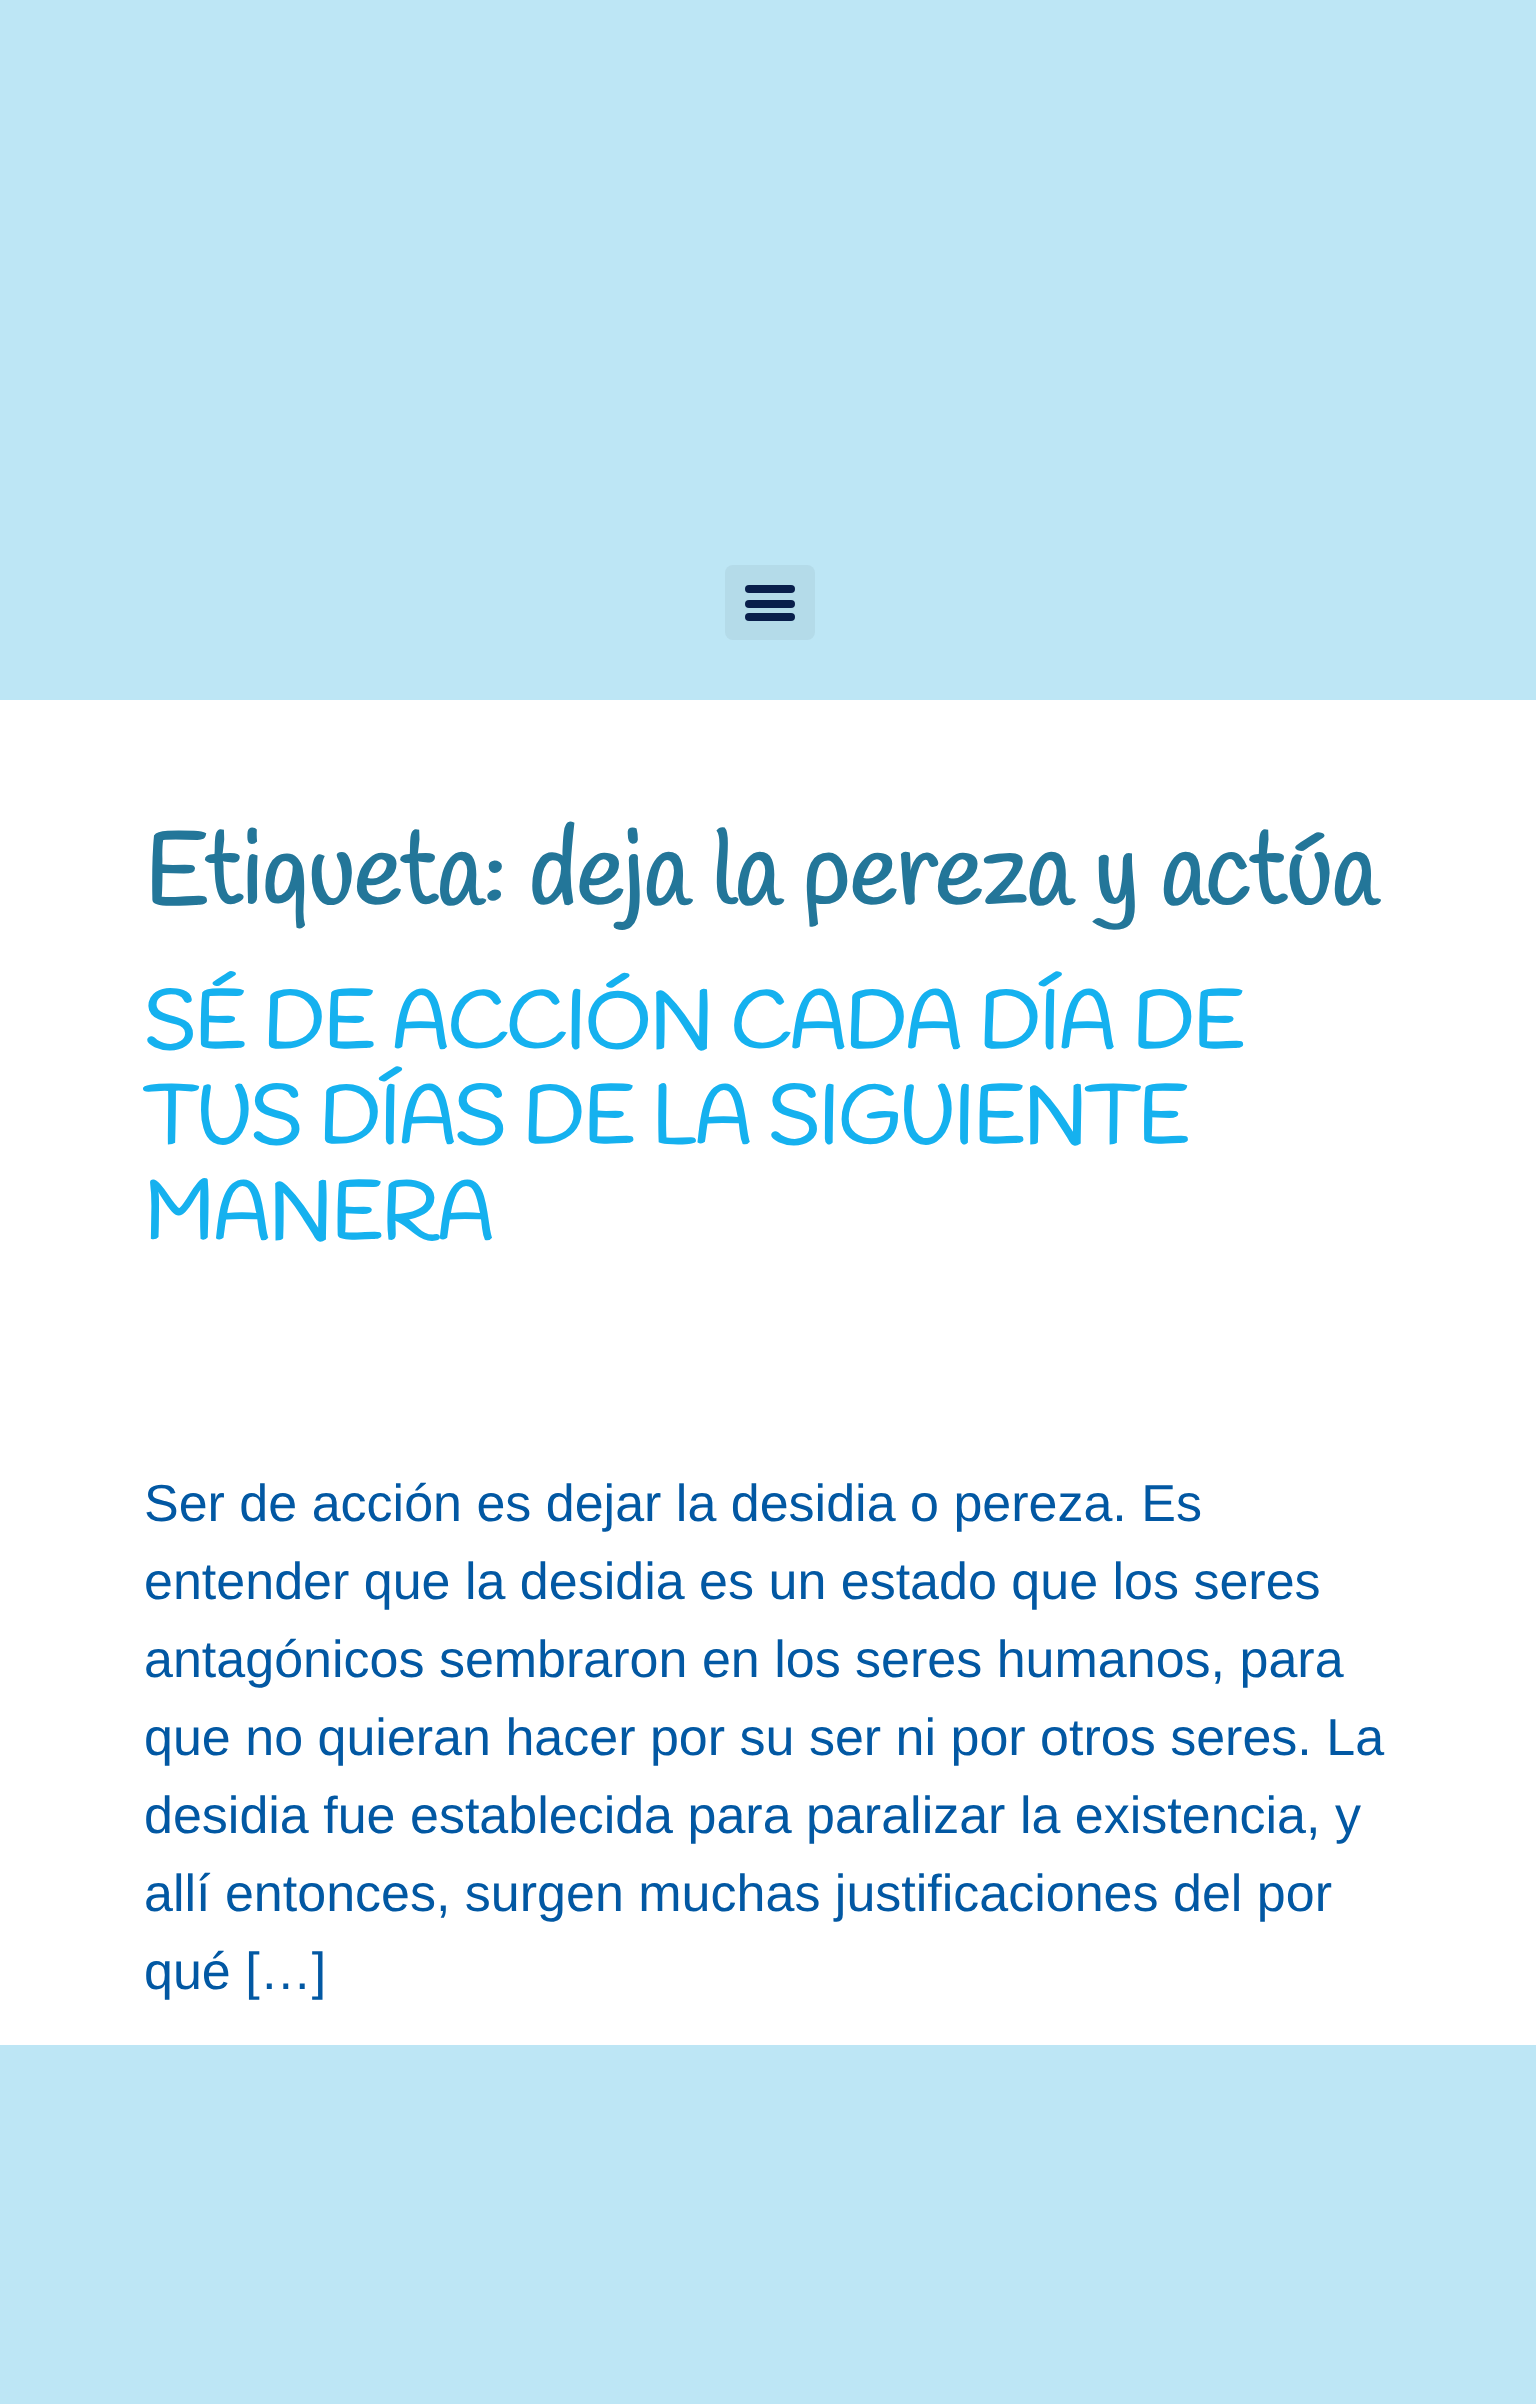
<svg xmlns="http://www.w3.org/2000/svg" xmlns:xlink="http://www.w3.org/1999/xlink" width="1536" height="2404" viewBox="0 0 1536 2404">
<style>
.cls-1{font:bold 100px Handlee;fill:#237699}
.cls-2{font:bold 80px Handlee;fill:#15b1ef}
.cls-3{font:52px Liberation Sans;fill:#0258a3}
</style>
<rect width="100%" height="100%" fill="#ffffff"/>
<rect fill="#bde6f5" x="0" y="0" width="1536" height="700"/>
<rect fill="#b4dbe9" x="725" y="565" width="90" height="75" rx="8"/>
<rect fill="#091e4b" x="745" y="600" width="50" height="8" rx="4"/>
<rect fill="#091e4b" x="745" y="585" width="50" height="8" rx="4"/>
<rect fill="#091e4b" x="745" y="613" width="50" height="8" rx="4"/>
<rect fill="#bde6f5" x="0" y="2045" width="1536" height="359"/>
<text class="cls-1" x="144" y="905">Etiqueta: deja la pereza y actúa</text>
<text class="cls-2"><tspan x="144" y="1048">SÉ DE ACCIÓN CADA DÍA DE</tspan><tspan x="144" y="1143">TUS DÍAS DE LA SIGUIENTE</tspan><tspan x="144" y="1239">MANERA</tspan></text>
<text class="cls-3"><tspan x="144" y="1521">Ser de acción es dejar la desidia o pereza. Es</tspan><tspan x="144" y="1599">entender que la desidia es un estado que los seres</tspan><tspan x="144" y="1677">antagónicos sembraron en los seres humanos, para</tspan><tspan x="144" y="1755">que no quieran hacer por su ser ni por otros seres. La</tspan><tspan x="144" y="1833">desidia fue establecida para paralizar la existencia, y</tspan><tspan x="144" y="1911">allí entonces, surgen muchas justificaciones del por</tspan><tspan x="144" y="1989">qué […]</tspan></text>
</svg>
